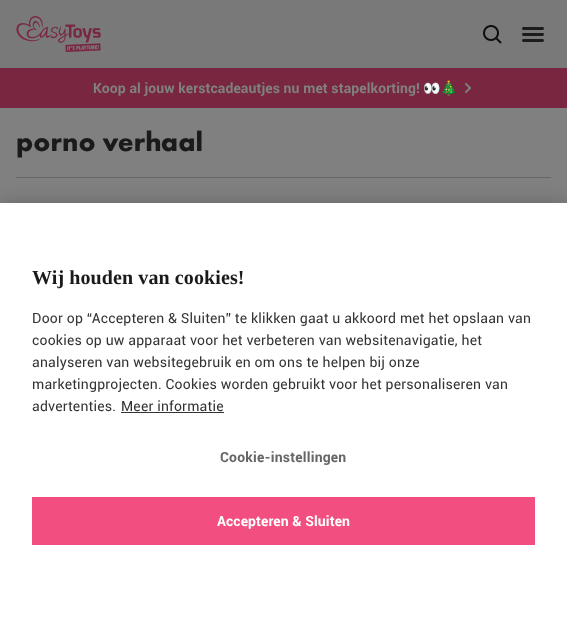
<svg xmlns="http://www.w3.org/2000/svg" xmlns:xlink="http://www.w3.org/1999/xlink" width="567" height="636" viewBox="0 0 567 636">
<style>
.cls-1{font:bold 14px Roboto;letter-spacing:0.1px;fill:#808080}
.cls-2{font:bold 14px Noto Color Emoji;letter-spacing:0.1px;fill:#808080}
.cls-3{font:bold 28px Futura PT;letter-spacing:0.1px;fill:#1a1a1a}
.cls-4{font:bold 20px Liberation Serif;letter-spacing:0.1px;fill:#1a1a1a}
.cls-5{font:14px Roboto;letter-spacing:0.2px;fill:#333333}
.cls-6{font:bold 14px Roboto;letter-spacing:0.2px;fill:#666666}
.cls-7{font:bold 14px Roboto;letter-spacing:0.1px;fill:#ffffff}
</style>
<rect width="100%" height="100%" fill="#808080"/>
<rect fill="#797979" x="0" y="0" width="567" height="68"/>
<image xlink:href="image0.png" x="16" y="16" width="85" height="36"/>
<image xlink:href="image1.png" x="483" y="25" width="19" height="19"/>
<image xlink:href="image2.png" x="522" y="27" width="22" height="15"/>
<rect fill="#792740" x="0" y="68" width="567" height="40"/>
<image xlink:href="image3.png" x="465" y="83" width="6" height="10"/>
<rect fill="#666666" x="16" y="177" width="535" height="1"/>
<rect fill="#000000" fill-opacity="0.2" filter="blur(9px)" x="0" y="203" width="567" height="433"/>
<rect fill="#ffffff" x="0" y="203" width="567" height="433"/>
<rect fill="#333333" x="121" y="412" width="103" height="1"/>
<rect fill="#f24e7f" x="32" y="497" width="503" height="48"/>
<text class="cls-1" x="93" y="93">Koop al jouw kerstcadeautjes nu met stapelkorting!</text>
<text class="cls-2" x="423" y="93">👀🎄</text>
<text class="cls-3" x="16" y="151">porno verhaal</text>
<text class="cls-4" x="32" y="284">Wij houden van cookies!</text>
<text class="cls-5"><tspan x="32" y="323">Door op “Accepteren &amp; Sluiten” te klikken gaat u akkoord met het opslaan van</tspan><tspan x="32" y="345">cookies op uw apparaat voor het verbeteren van websitenavigatie, het</tspan><tspan x="32" y="367">analyseren van websitegebruik en om ons te helpen bij onze</tspan><tspan x="32" y="389">marketingprojecten. Cookies worden gebruikt voor het personaliseren van</tspan><tspan x="32" y="411">advertenties.</tspan></text>
<text class="cls-5" x="121" y="411">Meer informatie</text>
<text class="cls-6" x="220" y="462">Cookie-instellingen</text>
<text class="cls-7" x="217" y="526">Accepteren &amp; Sluiten</text>
</svg>
